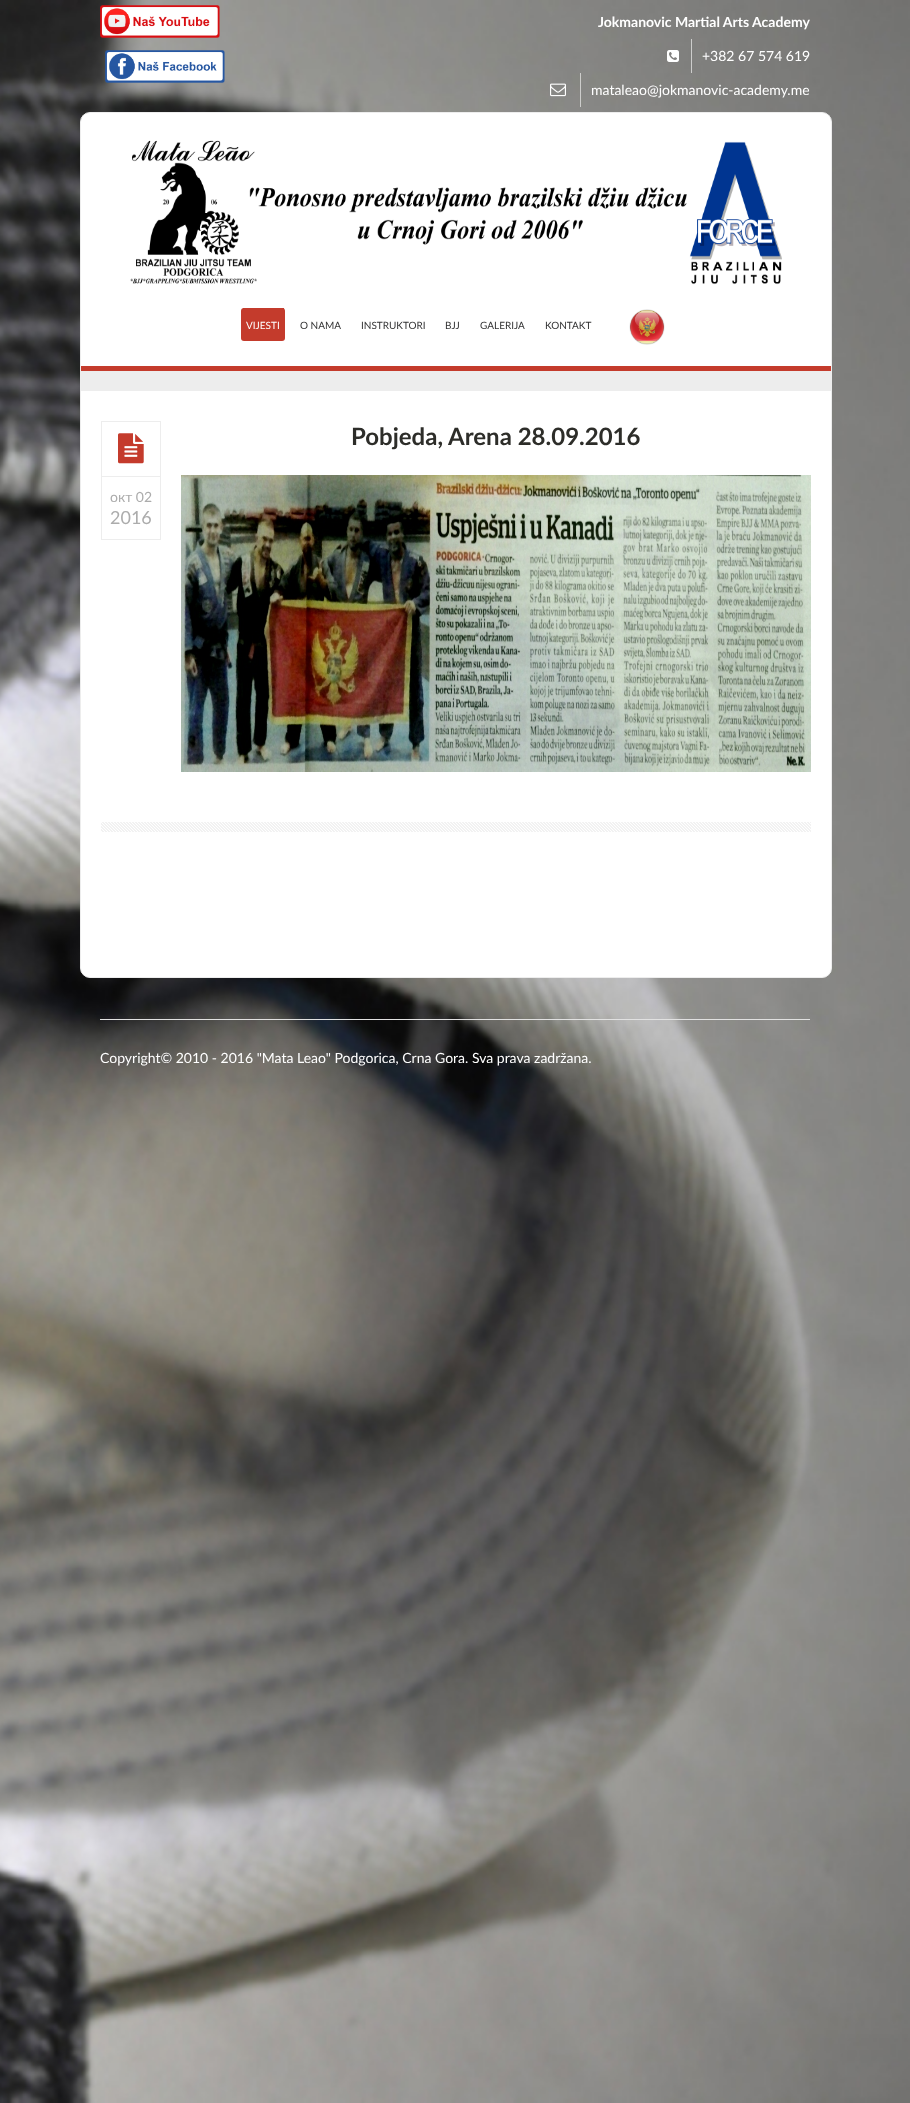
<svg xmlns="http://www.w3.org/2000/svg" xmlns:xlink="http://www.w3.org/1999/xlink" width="910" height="2103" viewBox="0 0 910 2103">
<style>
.cls-1{font:bold 14px Lato;fill:#ffffff}
.cls-2{font:14px Lato;fill:#ffffff}
.cls-3{font:10px Lato;fill:#ffffff}
.cls-4{font:10px Lato;fill:#333334}
.cls-5{font:bold 24px Lato;fill:#2d2d29}
.cls-6{font:14px Lato;fill:#acacac}
.cls-7{font:18px Lato;fill:#acacac}
</style>
<rect width="100%" height="100%" fill="#ffffff"/>
<image xlink:href="image0.png" x="0" y="0" width="910" height="2103"/>
<image xlink:href="image1.png" x="100" y="5" width="120" height="33"/>
<image xlink:href="image2.png" x="105" y="50" width="120" height="33"/>
<image xlink:href="image3.png" x="667" y="50" width="12" height="12"/>
<rect fill="#cdcdcc" x="691" y="39" width="1" height="34"/>
<image xlink:href="image4.png" x="550" y="83" width="16" height="14"/>
<rect fill="#cdcdcc" x="580" y="73" width="1" height="34"/>
<rect fill="#ffffff" stroke="#ededed" x="80.5" y="112.5" width="751" height="865" rx="9.5"/>
<image xlink:href="image5.png" x="130" y="140" width="652" height="145"/>
<rect fill="#c43b2c" x="241" y="308" width="44" height="33" rx="3"/>
<rect fill="#c43b2c" x="243" y="308" width="41" height="1"/>
<image xlink:href="image6.png" x="629" y="309" width="36" height="36"/>
<rect fill="#ededed" x="81" y="371" width="750" height="20"/>
<rect fill="#c43b2c" x="81" y="366" width="750" height="5"/>
<image xlink:href="image7.png" x="101" y="822" width="710" height="10"/>
<rect fill="none" stroke="#ededed" x="101.5" y="421.5" width="59" height="118"/>
<image xlink:href="image8.png" x="118" y="433" width="26" height="31"/>
<rect fill="#ededed" x="102" y="476" width="58" height="1"/>
<image xlink:href="image9.png" x="181" y="475" width="630" height="297"/>
<rect fill="#e1e1e1" x="100" y="1019" width="710" height="1"/>
<text class="cls-1" x="598" y="27">Jokmanovic Martial Arts Academy</text>
<text class="cls-2" x="702" y="61">+382 67 574 619</text>
<text class="cls-2" x="591" y="95">mataleao@jokmanovic-academy.me</text>
<text class="cls-3" x="246" y="329">VIJESTI</text>
<text class="cls-4" x="300" y="329">O NAMA</text>
<text class="cls-4" x="361" y="329">INSTRUKTORI</text>
<text class="cls-4" x="445" y="329">BJJ</text>
<text class="cls-4" x="480" y="329">GALERIJA</text>
<text class="cls-4" x="545" y="329">KONTAKT</text>
<text class="cls-5" x="351" y="445">Pobjeda, Arena 28.09.2016</text>
<text class="cls-6" x="110" y="502">окт 02</text>
<text class="cls-7" x="110" y="524">2016</text>
<text class="cls-2" x="100" y="1063">Copyright© 2010 - 2016 "Mata Leao" Podgorica, Crna Gora. Sva prava zadržana.</text>
</svg>
